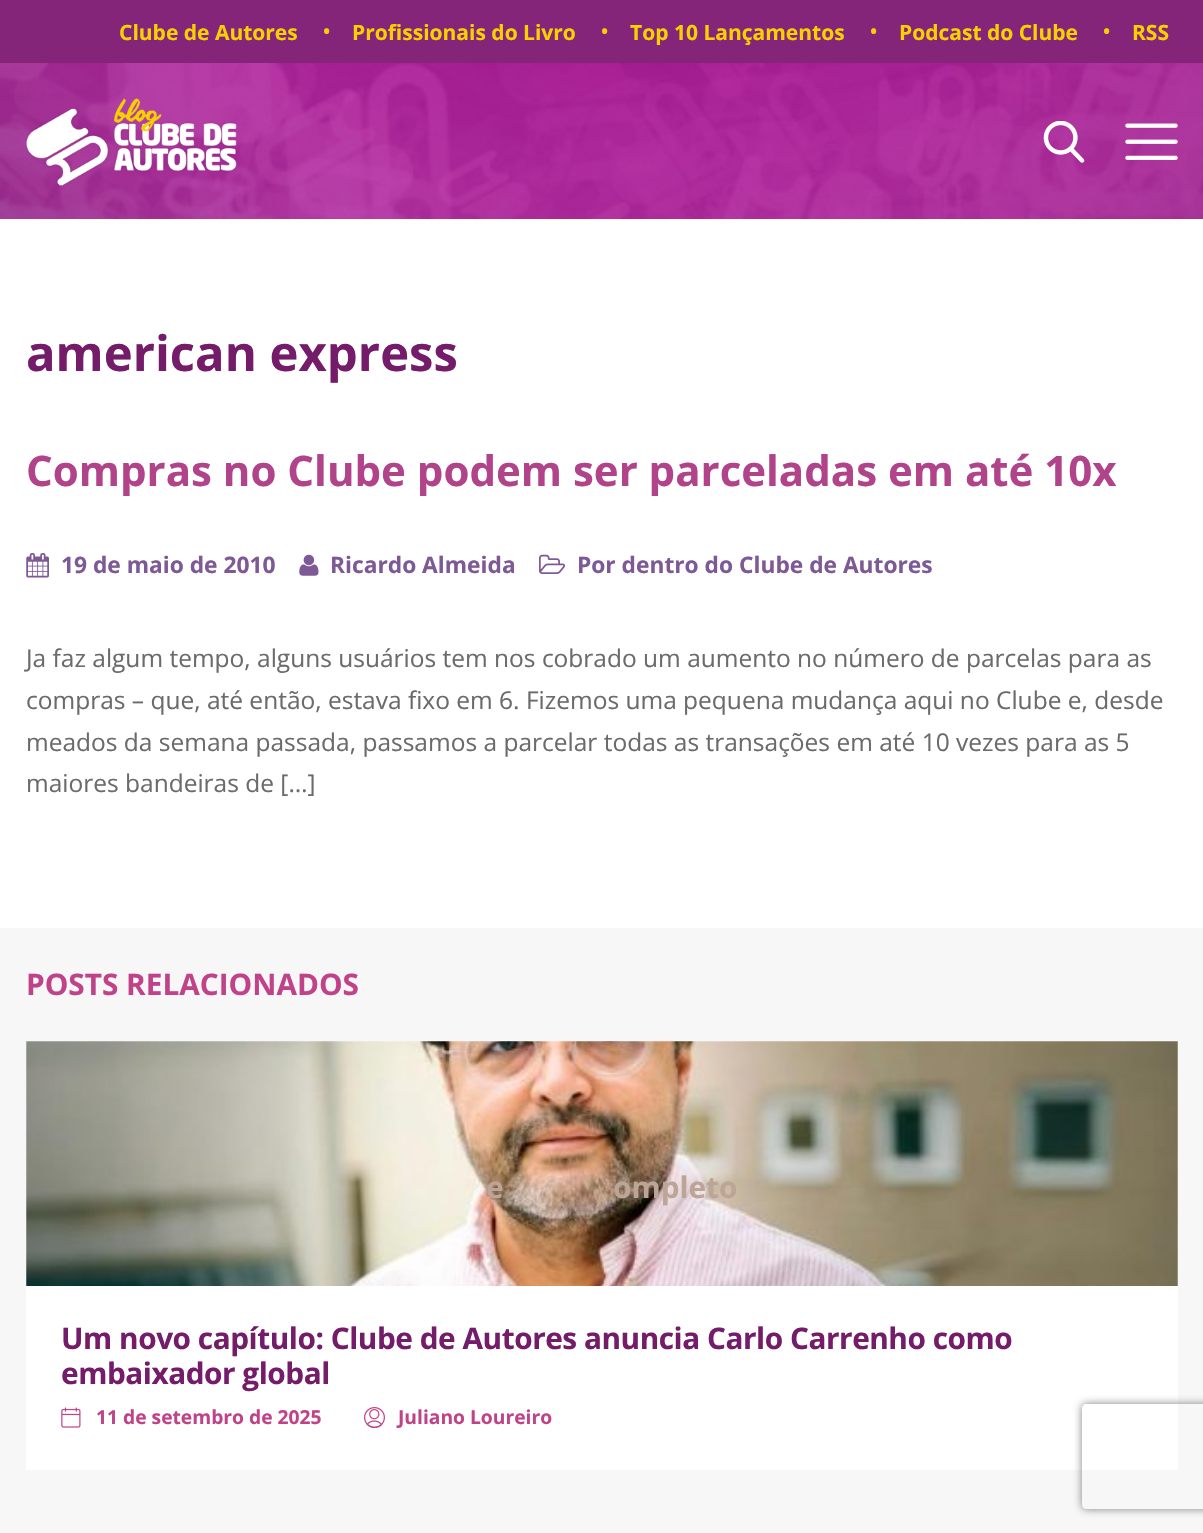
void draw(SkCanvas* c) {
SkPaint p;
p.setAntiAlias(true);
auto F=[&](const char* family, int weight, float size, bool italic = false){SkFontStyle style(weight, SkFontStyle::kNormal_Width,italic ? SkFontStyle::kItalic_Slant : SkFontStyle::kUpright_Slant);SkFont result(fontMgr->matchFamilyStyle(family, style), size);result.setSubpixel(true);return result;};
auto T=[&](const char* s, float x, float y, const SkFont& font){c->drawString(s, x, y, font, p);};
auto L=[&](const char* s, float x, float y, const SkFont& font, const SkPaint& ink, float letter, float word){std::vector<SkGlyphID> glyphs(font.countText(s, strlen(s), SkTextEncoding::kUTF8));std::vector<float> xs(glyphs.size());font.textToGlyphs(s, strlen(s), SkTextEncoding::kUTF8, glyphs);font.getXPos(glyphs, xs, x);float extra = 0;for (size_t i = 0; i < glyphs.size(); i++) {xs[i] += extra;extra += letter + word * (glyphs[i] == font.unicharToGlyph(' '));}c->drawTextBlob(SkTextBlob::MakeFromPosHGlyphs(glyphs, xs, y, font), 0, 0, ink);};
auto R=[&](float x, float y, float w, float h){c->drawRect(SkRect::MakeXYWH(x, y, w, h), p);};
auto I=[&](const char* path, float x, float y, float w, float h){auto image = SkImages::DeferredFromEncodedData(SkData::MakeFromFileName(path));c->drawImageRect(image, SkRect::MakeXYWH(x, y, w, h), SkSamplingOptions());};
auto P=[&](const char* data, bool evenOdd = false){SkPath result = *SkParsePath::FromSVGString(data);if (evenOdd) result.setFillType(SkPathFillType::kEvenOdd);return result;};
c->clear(0xffffffff);
I("1.png",0,63,1203,156);
p.setColor(0xff85257a);
R(0,0,1203,63);
auto f1 = F("Open Sans",700,21);
p.setColor(0xfff6d000);
T("Clube de Autores",119,40,f1);
auto f2 = F("Open Sans",400,24.5);
T("•",322,40,f2);
T("Profissionais do Livro",352,40,f1);
T("•",600,40,f2);
T("Top 10 Lançamentos",630,40,f1);
T("•",869,40,f2);
T("Podcast do Clube",899,40,f1);
T("•",1102,40,f2);
T("RSS",1132,40,f1);
I("2.png",26,98,211,88);
I("3.png",1043,121,42,42);
I("4.png",1125,123,53,37);
auto f3 = F("Open Sans",700,49);
p.setColor(0xff741c6a);
T("american express",26,371,f3);
auto f4 = F("Open Sans",700,42);
p.setColor(0xffb1438a);
T("Compras no Clube podem ser parceladas em até 10x",26,486,f4);
I("5.png",26,553,23,25);
auto f5 = F("Open Sans",700,22.75);
p.setColor(0xff7d5a95);
T("19 de maio de 2010",61,573,f5);
I("6.png",299,554,20,22);
T("Ricardo Almeida",330,573,f5);
I("7.png",539,554,27,20);
T("Por dentro do Clube de Autores",577,573,f5);
p.setColor(0xff6b6b6b);
T("Ja faz algum tempo, alguns usuários tem nos cobrado um aumento no número de parcelas para as",26,667,f2);
T("compras – que, até então, estava fixo em 6. Fizemos uma pequena mudança aqui no Clube e, desde",26,709,f2);
T("meados da semana passada, passamos a parcelar todas as transações em até 10 vezes para as 5",26,751,f2);
T("maiores bandeiras de […]",26,792,f2);
p.setColor(0xfff7f7f7);
R(0,928,1203,605);
auto f6 = F("Open Sans",700,29.75);
p.setColor(0xffc0438a);
T("POSTS RELACIONADOS",26,995,f6);
p.setColor(0xffffffff);
R(26,1041,1152,429);
I("8.png",26,1041,1152,245);
p.setColor(0xffbca596);
T("e",486,1198,f6);
T("ompleto",613,1198,f6);
p.setColor(0xff741c6a);
L("Um novo capítulo: Clube de Autores anuncia Carlo Carrenho como",61,1349,f6,p,-.45,0);
L("embaixador global",61,1384,f6,p,-.45,0);
I("9.png",61,1407,20,21);
auto f7 = F("Open Sans",700,19.25);
p.setColor(0xffc0438a);
T("11 de setembro de 2025",96,1424,f7);
I("10.png",364,1407,21,21);
T("Juliano Loureiro",398,1424,f7);
c->save();
c->clipPath(P("M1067 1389h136v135h-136zm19 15h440c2 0 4 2 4 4v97c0 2-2 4-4 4h-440c-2 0-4-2-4-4v-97c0-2 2-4 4-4z",true),true);
p.setColor(0xff808080);
p.setMaskFilter(SkMaskFilter::MakeBlur(kNormal_SkBlurStyle, 4.5));
c->drawRoundRect(SkRect::MakeXYWH(1082,1404,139,105),4,4,p);
p.setMaskFilter(nullptr);
c->restore();
}
